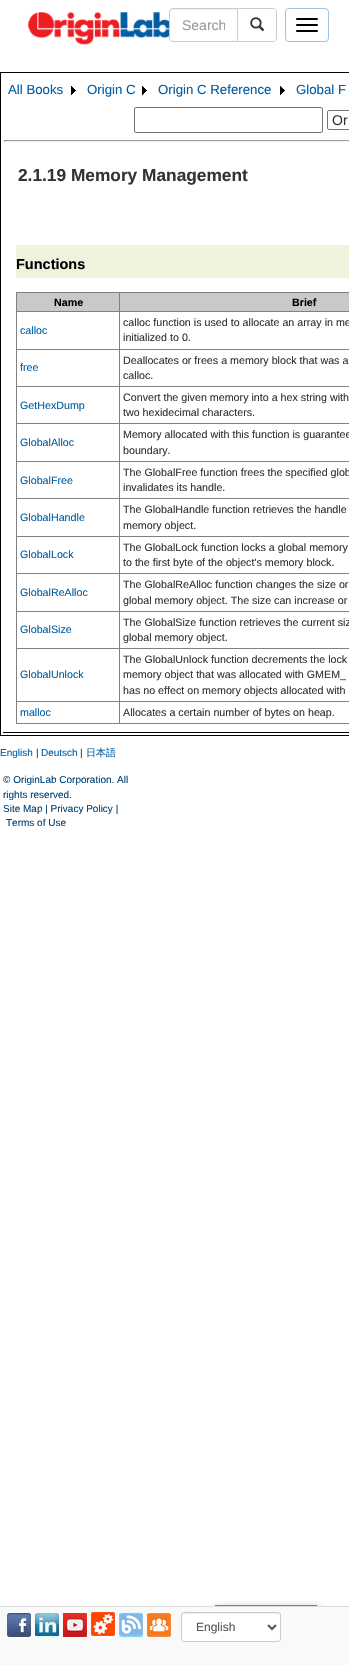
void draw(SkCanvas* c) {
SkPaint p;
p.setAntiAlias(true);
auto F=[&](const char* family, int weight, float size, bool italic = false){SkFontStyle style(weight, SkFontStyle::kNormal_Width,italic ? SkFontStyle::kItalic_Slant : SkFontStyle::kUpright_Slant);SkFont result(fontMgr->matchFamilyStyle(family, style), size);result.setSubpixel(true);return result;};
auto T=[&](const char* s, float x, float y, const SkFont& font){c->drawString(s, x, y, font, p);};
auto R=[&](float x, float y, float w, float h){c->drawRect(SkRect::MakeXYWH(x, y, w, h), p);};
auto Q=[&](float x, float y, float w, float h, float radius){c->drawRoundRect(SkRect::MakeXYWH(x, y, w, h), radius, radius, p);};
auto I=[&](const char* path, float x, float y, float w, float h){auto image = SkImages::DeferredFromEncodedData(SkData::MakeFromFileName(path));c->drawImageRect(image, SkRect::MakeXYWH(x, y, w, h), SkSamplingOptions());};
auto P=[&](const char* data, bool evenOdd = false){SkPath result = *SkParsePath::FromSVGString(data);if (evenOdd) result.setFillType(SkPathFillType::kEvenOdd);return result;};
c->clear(0xffffffff);
I("1.png",28,12,149,33);
p.setStroke(true);
p.setStrokeWidth(1);
p.setColor(0xffcccccc);
c->drawPath(P("M237.5 8.5h35.5c2 0 3.5 1.5 3.5 3.5v26c0 2-1.5 3.5-3.5 3.5h-35.5z"),p);
p.setStroke(false);
p.setColor(0xffffffff);
c->drawPath(P("M173 8h65v34h-65c-2 0-4-2-4-4v-26c0-2 2-4 4-4z"),p);
p.setColor(0xffececec);
c->drawPath(P("M173 10h64v-1h-64c-2 0-3 1-3 3v1c0-2 1-3 3-3z"),p);
p.setStroke(true);
p.setColor(0xffcccccc);
c->drawPath(P("M173 8.5h64.5v33h-64.5c-2 0-3.5-1.5-3.5-3.5v-26c0-2 1.5-3.5 3.5-3.5z"),p);
c->save();
c->clipRect(SkRect::MakeXYWH(182,17,43,16));
auto f1 = F("Liberation Sans",400,14);
p.setStroke(false);
p.setColor(0xff999999);
T("Search",182,30,f1);
c->restore();
I("2.png",250,17,15,15);
p.setStroke(true);
p.setColor(0xff9dc3e6);
c->drawRoundRect(SkRect::MakeXYWH(285.5,8.5,43,33),3.5,3.5,p);
p.setStroke(false);
p.setColor(0xff000000);
Q(296,18,22,2,1);
Q(296,24,22,2,1);
Q(296,30,22,2,1);
p.setStroke(true);
c->drawRect(SkRect::MakeXYWH(.5,72.5,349,663),p);
auto f2 = F("Liberation Sans",400,13.25);
p.setStroke(false);
p.setColor(0xff005da4);
T("All Books",8,94,f2);
I("3.png",71,86,5,9);
T("Origin C",87,94,f2);
I("3.png",142,86,5,9);
T("Origin C Reference",158,94,f2);
I("3.png",280,86,5,9);
T("Global F",296,94,f2);
p.setStroke(true);
p.setColor(0xff767676);
c->drawRoundRect(SkRect::MakeXYWH(134.5,107.5,188,25),1.5,1.5,p);
c->drawRoundRect(SkRect::MakeXYWH(327.5,110.5,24,19),1.5,1.5,p);
p.setStroke(false);
p.setColor(0xff333333);
T("Or",332,125,f1);
p.setColor(0xff9f9f9f);
R(4,140,345,1);
p.setColor(0xffeeeeee);
R(4,141,345,1);
p.setColor(0xff9f9f9f);
R(4,140,1,2);
p.setColor(0xff000000);
R(3,732,346,1);
auto f3 = F("Liberation Sans",700,17.3);
p.setColor(0xff333333);
T("2.1.19 Memory Management",18,181,f3);
p.setColor(0xffeff2dd);
R(16,245,333,33);
auto f4 = F("Liberation Sans",700,14.5);
p.setColor(0xff000000);
T("Functions",16,269,f4);
p.setColor(0xff808080);
R(16,292,333,1);
R(16,723,333,1);
R(16,292,1,432);
p.setColor(0xffc9c9c9);
R(17,293,102,18);
auto f5 = F("Liberation Sans",700,10.7);
p.setColor(0xff000000);
T("Name",54,306,f5);
p.setColor(0xffc9c9c9);
R(120,293,229,18);
p.setColor(0xff808080);
R(119,311,230,1);
R(119,349,230,1);
R(119,386,230,1);
R(119,423,230,1);
R(119,461,230,1);
R(119,498,230,1);
R(119,536,230,1);
R(119,573,230,1);
R(119,611,230,1);
R(119,648,230,1);
R(119,701,230,1);
R(119,701,1,23);
R(16,701,104,1);
R(119,648,1,54);
R(16,648,104,1);
R(119,611,1,38);
R(16,611,104,1);
R(119,573,1,39);
R(16,573,104,1);
R(119,536,1,38);
R(16,536,104,1);
R(119,498,1,39);
R(16,498,104,1);
R(119,461,1,38);
R(16,461,104,1);
R(119,423,1,39);
R(16,423,104,1);
R(119,386,1,38);
R(16,386,104,1);
R(119,349,1,38);
R(16,349,104,1);
R(119,311,1,39);
R(16,311,104,1);
R(119,292,1,20);
p.setColor(0xff000000);
T("Brief",292,306,f5);
auto f6 = F("Liberation Sans",400,10.7);
p.setColor(0xff005da4);
T("calloc",20,334,f6);
p.setColor(0xff333333);
T("calloc function is used to allocate an array in me",123,326,f6);
T("initialized to 0.",123,341,f6);
p.setColor(0xff005da4);
T("free",20,371,f6);
p.setColor(0xff333333);
T("Deallocates or frees a memory block that was a",123,364,f6);
T("calloc.",123,379,f6);
p.setColor(0xff005da4);
T("GetHexDump",20,409,f6);
p.setColor(0xff333333);
T("Convert the given memory into a hex string with",123,401,f6);
T("two hexidecimal characters.",123,416,f6);
p.setColor(0xff005da4);
T("GlobalAlloc",20,446,f6);
p.setColor(0xff333333);
T("Memory allocated with this function is guarantee",123,438,f6);
T("boundary.",123,454,f6);
p.setColor(0xff005da4);
T("GlobalFree",20,484,f6);
p.setColor(0xff333333);
T("The GlobalFree function frees the specified glob",123,476,f6);
T("invalidates its handle.",123,491,f6);
p.setColor(0xff005da4);
T("GlobalHandle",20,521,f6);
p.setColor(0xff333333);
T("The GlobalHandle function retrieves the handle",123,513,f6);
T("memory object.",123,529,f6);
p.setColor(0xff005da4);
T("GlobalLock",20,558,f6);
p.setColor(0xff333333);
T("The GlobalLock function locks a global memory",123,551,f6);
T("to the first byte of the object's memory block.",123,566,f6);
p.setColor(0xff005da4);
T("GlobalReAlloc",20,596,f6);
p.setColor(0xff333333);
T("The GlobalReAlloc function changes the size or",123,588,f6);
T("global memory object. The size can increase or",123,604,f6);
p.setColor(0xff005da4);
T("GlobalSize",20,633,f6);
p.setColor(0xff333333);
T("The GlobalSize function retrieves the current siz",123,626,f6);
T("global memory object.",123,641,f6);
p.setColor(0xff005da4);
T("GlobalUnlock",20,678,f6);
p.setColor(0xff333333);
T("The GlobalUnlock function decrements the lock",123,663,f6);
T("memory object that was allocated with GMEM_",123,678,f6);
T("has no effect on memory objects allocated with",123,694,f6);
p.setColor(0xff005da4);
T("malloc",20,716,f6);
p.setColor(0xff333333);
T("Allocates a certain number of bytes on heap.",123,716,f6);
auto f7 = F("Liberation Sans",400,10);
p.setColor(0xff005da4);
T("English",0,756,f7);
p.setColor(0xff333333);
T("|",36,756,f7);
p.setColor(0xff005da4);
T("Deutsch",41,756,f7);
p.setColor(0xff333333);
T("|",80,756,f7);
auto f8 = F("WenQuanYi Zen Hei",500,10);
p.setColor(0xff005da4);
T("日本語",86,756,f8);
p.setColor(0xff004376);
T("© OriginLab Corporation. All",3,783,f7);
T("rights reserved.",3,798,f7);
T("Site Map | Privacy Policy |",3,812,f7);
T("Terms of Use",6,826,f7);
I("4.png",211,1601,114,5);
p.setColor(0xfff9f9f9);
R(0,1607,349,58);
p.setColor(0xffdddddd);
R(0,1606,349,1);
I("5.png",7,1612,25,26);
I("6.png",35,1612,25,26);
I("7.png",63,1612,25,26);
I("8.png",91,1612,25,26);
I("9.png",119,1612,25,26);
I("10.png",147,1612,25,26);
p.setColor(0xffffffff);
Q(181,1612,100,30,3);
p.setColor(0xffececec);
c->drawPath(P("M184 1614h94c1 0 2 1 2 2c0-1 0-3-2-3h-78c-2 0-18-4-18 3c0-1 1-2 2-2z"),p);
p.setStroke(true);
p.setColor(0xffcccccc);
c->drawRoundRect(SkRect::MakeXYWH(181.5,1612.5,99,29),2.5,2.5,p);
p.setStrokeWidth(2);
p.setColor(0xff555555);
c->drawPath(P("M268 1625l4 4l4-4"),p);
auto f9 = F("Liberation Sans",400,12);
p.setStroke(false);
T("English",196,1631,f9);
}
